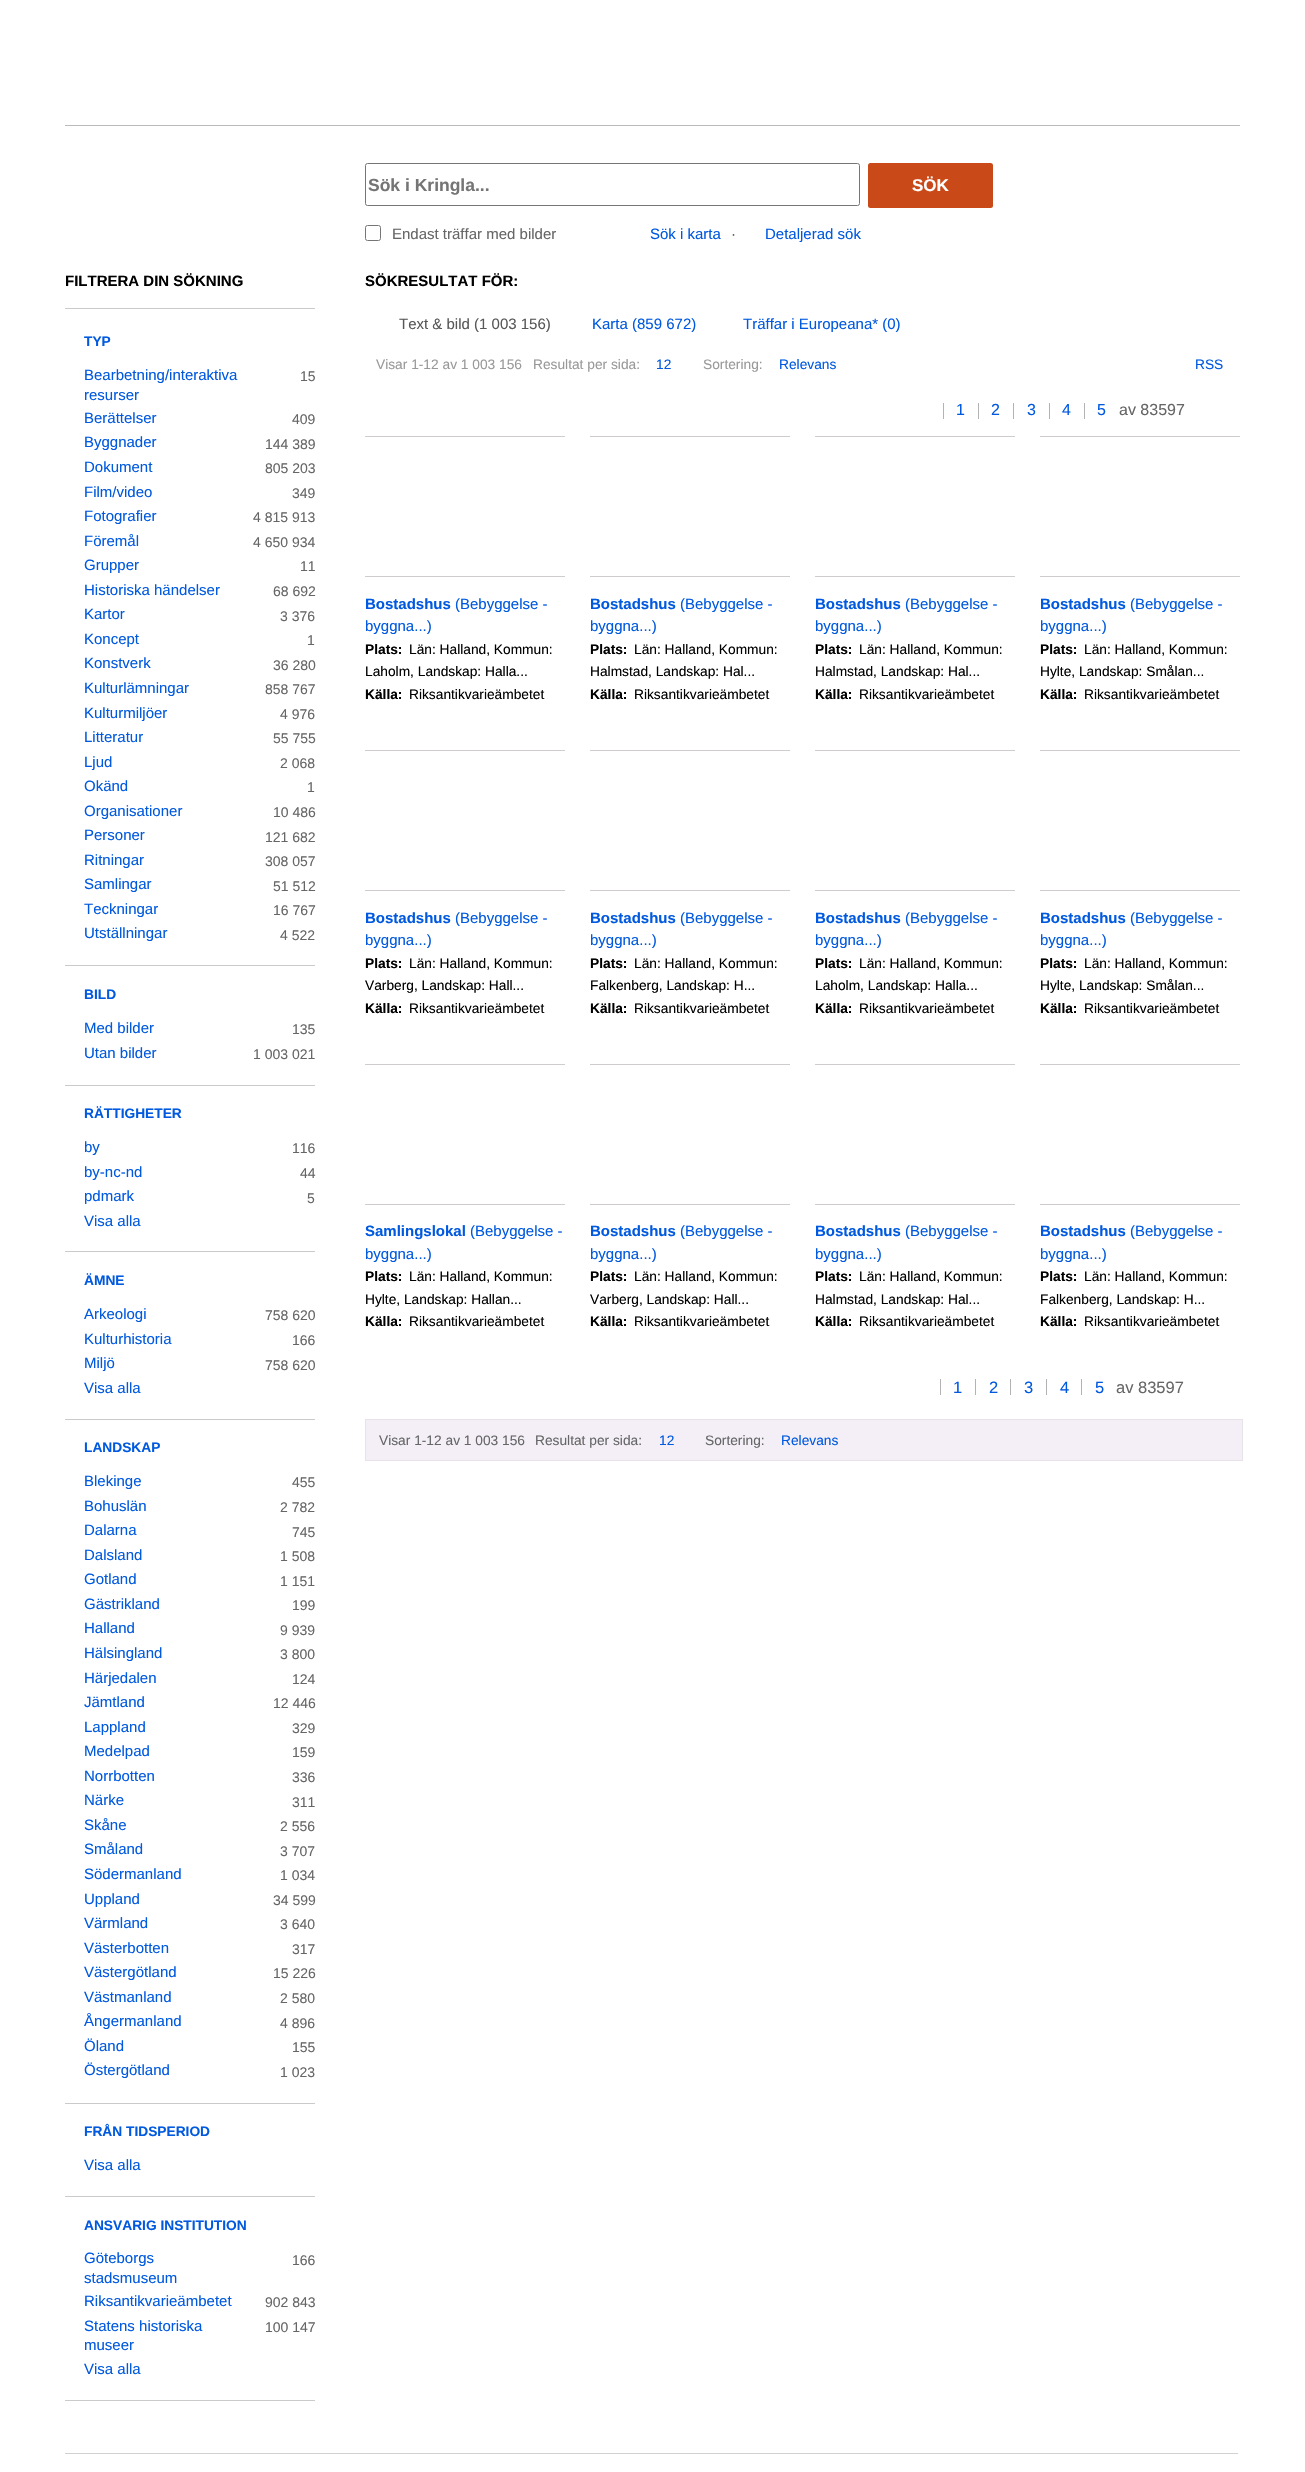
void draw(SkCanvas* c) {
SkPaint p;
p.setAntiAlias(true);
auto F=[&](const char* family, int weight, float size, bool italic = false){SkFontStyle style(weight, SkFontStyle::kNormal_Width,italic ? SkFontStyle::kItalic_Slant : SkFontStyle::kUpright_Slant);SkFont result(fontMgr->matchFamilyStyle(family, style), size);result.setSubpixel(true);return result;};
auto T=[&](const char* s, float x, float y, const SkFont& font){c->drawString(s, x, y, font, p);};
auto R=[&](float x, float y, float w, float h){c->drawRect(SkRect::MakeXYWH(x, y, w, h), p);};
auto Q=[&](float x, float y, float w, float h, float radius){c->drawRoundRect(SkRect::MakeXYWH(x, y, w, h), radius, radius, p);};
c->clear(0xffffffff);
p.setColor(0xffbababa);
R(65,125,1175,1);
p.setStroke(true);
p.setStrokeWidth(1);
p.setColor(0xff767676);
c->drawRoundRect(SkRect::MakeXYWH(365.5,163.5,494,42),2,2,p);
auto f1 = F("Liberation Sans",700,17.5);
p.setStroke(false);
p.setColor(0xff757575);
T("Sök i Kringla...",368,191,f1);
p.setColor(0xffc94a18);
Q(868,163,125,45,2.5);
auto f2 = F("Liberation Sans",700,17);
p.setColor(0xffffffff);
T("SÖK",912,191,f2);
p.setStroke(true);
p.setColor(0xff767676);
c->drawRoundRect(SkRect::MakeXYWH(365.5,225.5,15,15),2,2,p);
auto f3 = F("Liberation Sans",400,15);
p.setStroke(false);
p.setColor(0xff666666);
T("Endast träffar med bilder",392,239,f3);
p.setColor(0xff0059df);
T("Sök i karta",650,239,f3);
p.setColor(0xff585858);
T("·",731,239,f3);
p.setColor(0xff0059df);
T("Detaljerad sök",765,239,f3);
p.setColor(0xffcbcaca);
R(65,308,250,1);
auto f4 = F("Liberation Sans",700,15);
p.setColor(0xff000000);
T("FILTRERA DIN SÖKNING",65,286,f4);
p.setColor(0xffcbcaca);
R(65,965,250,1);
auto f5 = F("Liberation Sans",700,13.75);
p.setColor(0xff0059df);
T("TYP",84,346,f5);
T("Bearbetning/interaktiva",84,380,f3);
T("resurser",84,400,f3);
auto f6 = F("Liberation Sans",400,14);
p.setColor(0xff666666);
T("15",300,381,f6);
p.setColor(0xff0059df);
T("Berättelser",84,423,f3);
p.setColor(0xff666666);
T("409",292,424,f6);
p.setColor(0xff0059df);
T("Byggnader",84,447,f3);
p.setColor(0xff666666);
T("144 389",265,449,f6);
p.setColor(0xff0059df);
T("Dokument",84,472,f3);
p.setColor(0xff666666);
T("805 203",265,473,f6);
p.setColor(0xff0059df);
T("Film/video",84,497,f3);
p.setColor(0xff666666);
T("349",292,498,f6);
p.setColor(0xff0059df);
T("Fotografier",84,521,f3);
p.setColor(0xff666666);
T("4 815 913",253,522,f6);
p.setColor(0xff0059df);
T("Föremål",84,546,f3);
p.setColor(0xff666666);
T("4 650 934",253,547,f6);
p.setColor(0xff0059df);
T("Grupper",84,570,f3);
p.setColor(0xff666666);
T("11",300,571,f6);
p.setColor(0xff0059df);
T("Historiska händelser",84,595,f3);
p.setColor(0xff666666);
T("68 692",273,596,f6);
p.setColor(0xff0059df);
T("Kartor",84,619,f3);
p.setColor(0xff666666);
T("3 376",280,621,f6);
p.setColor(0xff0059df);
T("Koncept",84,644,f3);
p.setColor(0xff666666);
T("1",307,645,f6);
p.setColor(0xff0059df);
T("Konstverk",84,668,f3);
p.setColor(0xff666666);
T("36 280",273,670,f6);
p.setColor(0xff0059df);
T("Kulturlämningar",84,693,f3);
p.setColor(0xff666666);
T("858 767",265,694,f6);
p.setColor(0xff0059df);
T("Kulturmiljöer",84,718,f3);
p.setColor(0xff666666);
T("4 976",280,719,f6);
p.setColor(0xff0059df);
T("Litteratur",84,742,f3);
p.setColor(0xff666666);
T("55 755",273,743,f6);
p.setColor(0xff0059df);
T("Ljud",84,767,f3);
p.setColor(0xff666666);
T("2 068",280,768,f6);
p.setColor(0xff0059df);
T("Okänd",84,791,f3);
p.setColor(0xff666666);
T("1",307,792,f6);
p.setColor(0xff0059df);
T("Organisationer",84,816,f3);
p.setColor(0xff666666);
T("10 486",273,817,f6);
p.setColor(0xff0059df);
T("Personer",84,840,f3);
p.setColor(0xff666666);
T("121 682",265,842,f6);
p.setColor(0xff0059df);
T("Ritningar",84,865,f3);
p.setColor(0xff666666);
T("308 057",265,866,f6);
p.setColor(0xff0059df);
T("Samlingar",84,889,f3);
p.setColor(0xff666666);
T("51 512",273,891,f6);
p.setColor(0xff0059df);
T("Teckningar",84,914,f3);
p.setColor(0xff666666);
T("16 767",273,915,f6);
p.setColor(0xff0059df);
T("Utställningar",84,938,f3);
p.setColor(0xff666666);
T("4 522",280,940,f6);
p.setColor(0xffcbcaca);
R(65,1085,250,1);
p.setColor(0xff0059df);
T("BILD",84,999,f5);
T("Med bilder",84,1033,f3);
p.setColor(0xff666666);
T("135",292,1034,f6);
p.setColor(0xff0059df);
T("Utan bilder",84,1058,f3);
p.setColor(0xff666666);
T("1 003 021",253,1059,f6);
p.setColor(0xffcbcaca);
R(65,1251,250,1);
p.setColor(0xff0059df);
T("RÄTTIGHETER",84,1118,f5);
T("by",84,1152,f3);
p.setColor(0xff666666);
T("116",292,1153,f6);
p.setColor(0xff0059df);
T("by-nc-nd",84,1177,f3);
p.setColor(0xff666666);
T("44",300,1178,f6);
p.setColor(0xff0059df);
T("pdmark",84,1201,f3);
p.setColor(0xff666666);
T("5",307,1203,f6);
p.setColor(0xff0059df);
T("Visa alla",84,1226,f3);
p.setColor(0xffcbcaca);
R(65,1419,250,1);
p.setColor(0xff0059df);
T("ÄMNE",84,1285,f5);
T("Arkeologi",84,1319,f3);
p.setColor(0xff666666);
T("758 620",265,1320,f6);
p.setColor(0xff0059df);
T("Kulturhistoria",84,1344,f3);
p.setColor(0xff666666);
T("166",292,1345,f6);
p.setColor(0xff0059df);
T("Miljö",84,1368,f3);
p.setColor(0xff666666);
T("758 620",265,1370,f6);
p.setColor(0xff0059df);
T("Visa alla",84,1393,f3);
p.setColor(0xffcbcaca);
R(65,2103,250,1);
p.setColor(0xff0059df);
T("LANDSKAP",84,1452,f5);
T("Blekinge",84,1486,f3);
p.setColor(0xff666666);
T("455",292,1487,f6);
p.setColor(0xff0059df);
T("Bohuslän",84,1511,f3);
p.setColor(0xff666666);
T("2 782",280,1512,f6);
p.setColor(0xff0059df);
T("Dalarna",84,1535,f3);
p.setColor(0xff666666);
T("745",292,1537,f6);
p.setColor(0xff0059df);
T("Dalsland",84,1560,f3);
p.setColor(0xff666666);
T("1 508",280,1561,f6);
p.setColor(0xff0059df);
T("Gotland",84,1584,f3);
p.setColor(0xff666666);
T("1 151",280,1586,f6);
p.setColor(0xff0059df);
T("Gästrikland",84,1609,f3);
p.setColor(0xff666666);
T("199",292,1610,f6);
p.setColor(0xff0059df);
T("Halland",84,1633,f3);
p.setColor(0xff666666);
T("9 939",280,1635,f6);
p.setColor(0xff0059df);
T("Hälsingland",84,1658,f3);
p.setColor(0xff666666);
T("3 800",280,1659,f6);
p.setColor(0xff0059df);
T("Härjedalen",84,1683,f3);
p.setColor(0xff666666);
T("124",292,1684,f6);
p.setColor(0xff0059df);
T("Jämtland",84,1707,f3);
p.setColor(0xff666666);
T("12 446",273,1708,f6);
p.setColor(0xff0059df);
T("Lappland",84,1732,f3);
p.setColor(0xff666666);
T("329",292,1733,f6);
p.setColor(0xff0059df);
T("Medelpad",84,1756,f3);
p.setColor(0xff666666);
T("159",292,1757,f6);
p.setColor(0xff0059df);
T("Norrbotten",84,1781,f3);
p.setColor(0xff666666);
T("336",292,1782,f6);
p.setColor(0xff0059df);
T("Närke",84,1805,f3);
p.setColor(0xff666666);
T("311",292,1807,f6);
p.setColor(0xff0059df);
T("Skåne",84,1830,f3);
p.setColor(0xff666666);
T("2 556",280,1831,f6);
p.setColor(0xff0059df);
T("Småland",84,1854,f3);
p.setColor(0xff666666);
T("3 707",280,1856,f6);
p.setColor(0xff0059df);
T("Södermanland",84,1879,f3);
p.setColor(0xff666666);
T("1 034",280,1880,f6);
p.setColor(0xff0059df);
T("Uppland",84,1904,f3);
p.setColor(0xff666666);
T("34 599",273,1905,f6);
p.setColor(0xff0059df);
T("Värmland",84,1928,f3);
p.setColor(0xff666666);
T("3 640",280,1929,f6);
p.setColor(0xff0059df);
T("Västerbotten",84,1953,f3);
p.setColor(0xff666666);
T("317",292,1954,f6);
p.setColor(0xff0059df);
T("Västergötland",84,1977,f3);
p.setColor(0xff666666);
T("15 226",273,1978,f6);
p.setColor(0xff0059df);
T("Västmanland",84,2002,f3);
p.setColor(0xff666666);
T("2 580",280,2003,f6);
p.setColor(0xff0059df);
T("Ångermanland",84,2026,f3);
p.setColor(0xff666666);
T("4 896",280,2028,f6);
p.setColor(0xff0059df);
T("Öland",84,2051,f3);
p.setColor(0xff666666);
T("155",292,2052,f6);
p.setColor(0xff0059df);
T("Östergötland",84,2075,f3);
p.setColor(0xff666666);
T("1 023",280,2077,f6);
p.setColor(0xffcbcaca);
R(65,2196,250,1);
p.setColor(0xff0059df);
T("FRÅN TIDSPERIOD",84,2136,f5);
T("Visa alla",84,2170,f3);
p.setColor(0xffcbcaca);
R(65,2400,250,1);
p.setColor(0xff0059df);
T("ANSVARIG INSTITUTION",84,2230,f5);
T("Göteborgs",84,2263,f3);
T("stadsmuseum",84,2283,f3);
p.setColor(0xff666666);
T("166",292,2265,f6);
p.setColor(0xff0059df);
T("Riksantikvarieämbetet",84,2306,f3);
p.setColor(0xff666666);
T("902 843",265,2307,f6);
p.setColor(0xff0059df);
T("Statens historiska",84,2331,f3);
T("museer",84,2350,f3);
p.setColor(0xff666666);
T("100 147",265,2332,f6);
p.setColor(0xff0059df);
T("Visa alla",84,2374,f3);
p.setColor(0xff000000);
T("SÖKRESULTAT FÖR:",365,286,f4);
p.setColor(0xff585858);
T("Text & bild (1 003 156)",399,329,f3);
p.setColor(0xff0059df);
T("Karta (859 672)",592,329,f3);
T("Träffar i Europeana* (0)",743,329,f3);
auto f7 = F("Liberation Sans",400,13.75);
p.setColor(0xff999999);
T("Visar 1-12 av 1 003 156",376,369,f7);
T("Resultat per sida:",533,369,f7);
p.setColor(0xff0059df);
T("12",656,369,f7);
p.setColor(0xff999999);
T("Sortering:",703,369,f7);
p.setColor(0xff0059df);
T("Relevans",779,369,f7);
T("RSS",1195,369,f7);
p.setColor(0xffb3b3b3);
R(943,403,1,16);
auto f8 = F("Liberation Sans",400,16);
p.setColor(0xff0059df);
T("1",956,415,f8);
p.setColor(0xffb3b3b3);
R(978,403,1,16);
p.setColor(0xff0059df);
T("2",991,415,f8);
p.setColor(0xffb3b3b3);
R(1013,403,1,16);
p.setColor(0xff0059df);
T("3",1027,415,f8);
p.setColor(0xffb3b3b3);
R(1049,403,1,16);
p.setColor(0xff0059df);
T("4",1062,415,f8);
p.setColor(0xffb3b3b3);
R(1084,403,1,16);
p.setColor(0xff0059df);
T("5",1097,415,f8);
p.setColor(0xff666666);
T("av 83597",1119,415,f8);
p.setColor(0xffd0cccc);
R(365,436,200,1);
R(365,576,200,1);
p.setColor(0xff0059df);
T("Bostadshus",365,609,f4);
T("(Bebyggelse -",455,609,f3);
T("byggna...)",365,631,f3);
p.setColor(0xff000000);
T("Plats:",365,654,f5);
T("Län: Halland, Kommun:",409,654,f7);
T("Laholm, Landskap: Halla...",365,676,f7);
T("Källa:",365,699,f5);
T("Riksantikvarieämbetet",409,699,f7);
p.setColor(0xffd0cccc);
R(590,436,200,1);
R(590,576,200,1);
p.setColor(0xff0059df);
T("Bostadshus",590,609,f4);
T("(Bebyggelse -",680,609,f3);
T("byggna...)",590,631,f3);
p.setColor(0xff000000);
T("Plats:",590,654,f5);
T("Län: Halland, Kommun:",634,654,f7);
T("Halmstad, Landskap: Hal...",590,676,f7);
T("Källa:",590,699,f5);
T("Riksantikvarieämbetet",634,699,f7);
p.setColor(0xffd0cccc);
R(815,436,200,1);
R(815,576,200,1);
p.setColor(0xff0059df);
T("Bostadshus",815,609,f4);
T("(Bebyggelse -",905,609,f3);
T("byggna...)",815,631,f3);
p.setColor(0xff000000);
T("Plats:",815,654,f5);
T("Län: Halland, Kommun:",859,654,f7);
T("Halmstad, Landskap: Hal...",815,676,f7);
T("Källa:",815,699,f5);
T("Riksantikvarieämbetet",859,699,f7);
p.setColor(0xffd0cccc);
R(1040,436,200,1);
R(1040,576,200,1);
p.setColor(0xff0059df);
T("Bostadshus",1040,609,f4);
T("(Bebyggelse -",1130,609,f3);
T("byggna...)",1040,631,f3);
p.setColor(0xff000000);
T("Plats:",1040,654,f5);
T("Län: Halland, Kommun:",1084,654,f7);
T("Hylte, Landskap: Smålan...",1040,676,f7);
T("Källa:",1040,699,f5);
T("Riksantikvarieämbetet",1084,699,f7);
p.setColor(0xffd0cccc);
R(365,750,200,1);
R(365,890,200,1);
p.setColor(0xff0059df);
T("Bostadshus",365,923,f4);
T("(Bebyggelse -",455,923,f3);
T("byggna...)",365,945,f3);
p.setColor(0xff000000);
T("Plats:",365,968,f5);
T("Län: Halland, Kommun:",409,968,f7);
T("Varberg, Landskap: Hall...",365,990,f7);
T("Källa:",365,1013,f5);
T("Riksantikvarieämbetet",409,1013,f7);
p.setColor(0xffd0cccc);
R(590,750,200,1);
R(590,890,200,1);
p.setColor(0xff0059df);
T("Bostadshus",590,923,f4);
T("(Bebyggelse -",680,923,f3);
T("byggna...)",590,945,f3);
p.setColor(0xff000000);
T("Plats:",590,968,f5);
T("Län: Halland, Kommun:",634,968,f7);
T("Falkenberg, Landskap: H...",590,990,f7);
T("Källa:",590,1013,f5);
T("Riksantikvarieämbetet",634,1013,f7);
p.setColor(0xffd0cccc);
R(815,750,200,1);
R(815,890,200,1);
p.setColor(0xff0059df);
T("Bostadshus",815,923,f4);
T("(Bebyggelse -",905,923,f3);
T("byggna...)",815,945,f3);
p.setColor(0xff000000);
T("Plats:",815,968,f5);
T("Län: Halland, Kommun:",859,968,f7);
T("Laholm, Landskap: Halla...",815,990,f7);
T("Källa:",815,1013,f5);
T("Riksantikvarieämbetet",859,1013,f7);
p.setColor(0xffd0cccc);
R(1040,750,200,1);
R(1040,890,200,1);
p.setColor(0xff0059df);
T("Bostadshus",1040,923,f4);
T("(Bebyggelse -",1130,923,f3);
T("byggna...)",1040,945,f3);
p.setColor(0xff000000);
T("Plats:",1040,968,f5);
T("Län: Halland, Kommun:",1084,968,f7);
T("Hylte, Landskap: Smålan...",1040,990,f7);
T("Källa:",1040,1013,f5);
T("Riksantikvarieämbetet",1084,1013,f7);
p.setColor(0xffd0cccc);
R(365,1064,200,1);
R(365,1204,200,1);
p.setColor(0xff0059df);
T("Samlingslokal",365,1236,f4);
T("(Bebyggelse -",470,1236,f3);
T("byggna...)",365,1259,f3);
p.setColor(0xff000000);
T("Plats:",365,1281,f5);
T("Län: Halland, Kommun:",409,1281,f7);
T("Hylte, Landskap: Hallan...",365,1304,f7);
T("Källa:",365,1326,f5);
T("Riksantikvarieämbetet",409,1326,f7);
p.setColor(0xffd0cccc);
R(590,1064,200,1);
R(590,1204,200,1);
p.setColor(0xff0059df);
T("Bostadshus",590,1236,f4);
T("(Bebyggelse -",680,1236,f3);
T("byggna...)",590,1259,f3);
p.setColor(0xff000000);
T("Plats:",590,1281,f5);
T("Län: Halland, Kommun:",634,1281,f7);
T("Varberg, Landskap: Hall...",590,1304,f7);
T("Källa:",590,1326,f5);
T("Riksantikvarieämbetet",634,1326,f7);
p.setColor(0xffd0cccc);
R(815,1064,200,1);
R(815,1204,200,1);
p.setColor(0xff0059df);
T("Bostadshus",815,1236,f4);
T("(Bebyggelse -",905,1236,f3);
T("byggna...)",815,1259,f3);
p.setColor(0xff000000);
T("Plats:",815,1281,f5);
T("Län: Halland, Kommun:",859,1281,f7);
T("Halmstad, Landskap: Hal...",815,1304,f7);
T("Källa:",815,1326,f5);
T("Riksantikvarieämbetet",859,1326,f7);
p.setColor(0xffd0cccc);
R(1040,1064,200,1);
R(1040,1204,200,1);
p.setColor(0xff0059df);
T("Bostadshus",1040,1236,f4);
T("(Bebyggelse -",1130,1236,f3);
T("byggna...)",1040,1259,f3);
p.setColor(0xff000000);
T("Plats:",1040,1281,f5);
T("Län: Halland, Kommun:",1084,1281,f7);
T("Falkenberg, Landskap: H...",1040,1304,f7);
T("Källa:",1040,1326,f5);
T("Riksantikvarieämbetet",1084,1326,f7);
p.setColor(0xffb3b3b3);
R(940,1379,1,16);
auto f9 = F("Liberation Sans",400,16.5);
p.setColor(0xff0059df);
T("1",953,1393,f9);
p.setColor(0xffb3b3b3);
R(975,1379,1,16);
p.setColor(0xff0059df);
T("2",989,1393,f9);
p.setColor(0xffb3b3b3);
R(1010,1379,1,16);
p.setColor(0xff0059df);
T("3",1024,1393,f9);
p.setColor(0xffb3b3b3);
R(1046,1379,1,16);
p.setColor(0xff0059df);
T("4",1060,1393,f9);
p.setColor(0xffb3b3b3);
R(1081,1379,1,16);
p.setColor(0xff0059df);
T("5",1095,1393,f9);
p.setColor(0xff666666);
T("av 83597",1116,1393,f9);
p.setColor(0xfff4eff7);
c->drawRect(SkRect::MakeXYWH(365.5,1419.5,877,41),p);
p.setStroke(true);
p.setColor(0xffe7e3e8);
c->drawRect(SkRect::MakeXYWH(365.5,1419.5,877,41),p);
p.setStroke(false);
p.setColor(0xff666666);
T("Visar 1-12 av 1 003 156",379,1445,f7);
T("Resultat per sida:",535,1445,f7);
p.setColor(0xff0059df);
T("12",659,1445,f7);
p.setColor(0xff666666);
T("Sortering:",705,1445,f7);
p.setColor(0xff0059df);
T("Relevans",781,1445,f7);
p.setColor(0xffd2d1d1);
R(65,2453,1173,1);
}
